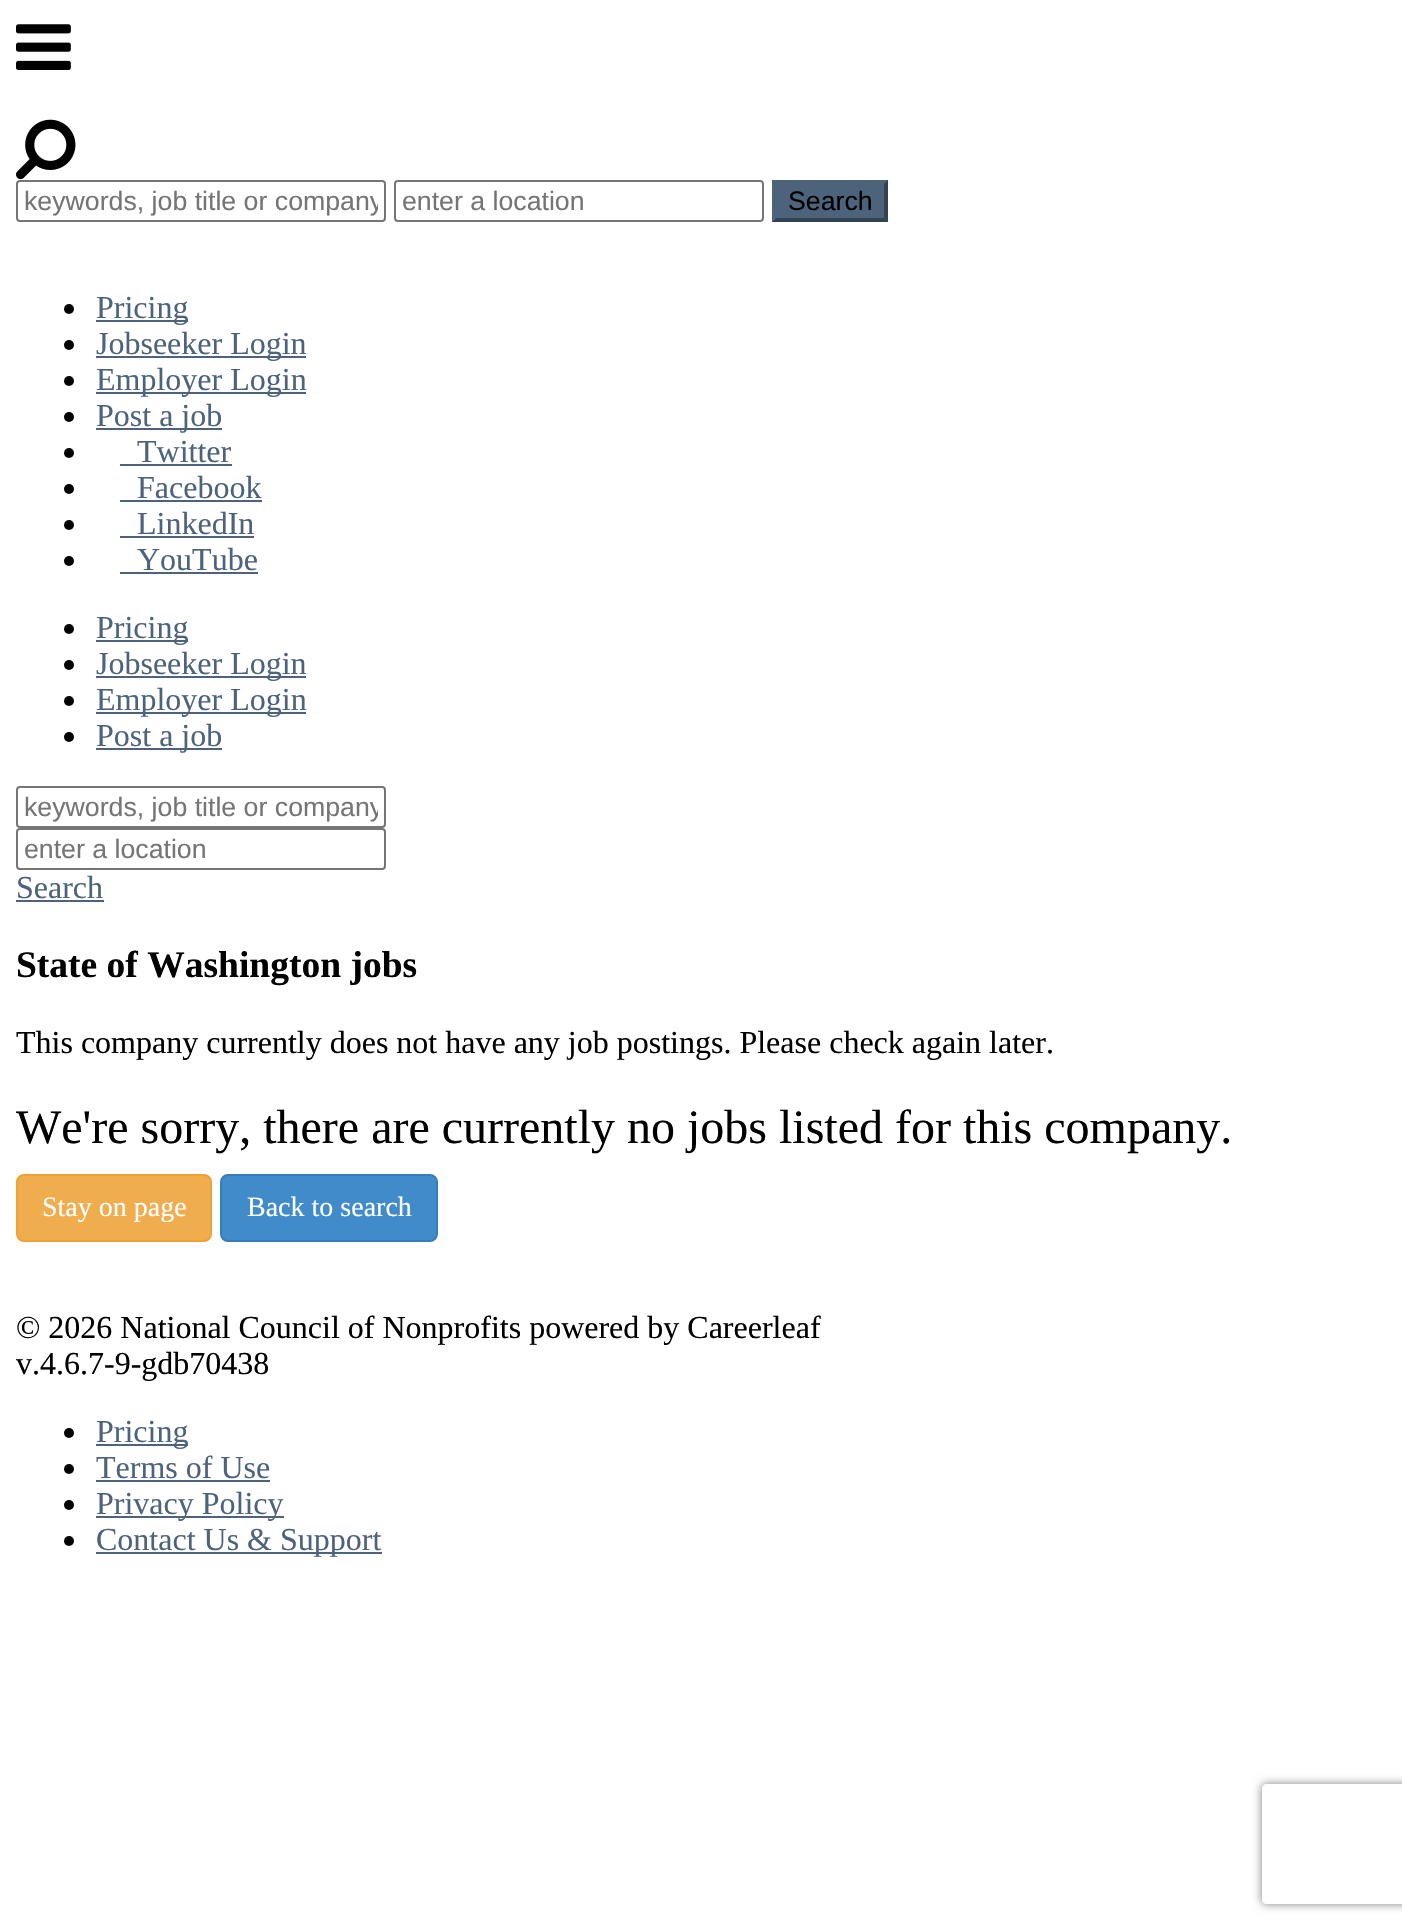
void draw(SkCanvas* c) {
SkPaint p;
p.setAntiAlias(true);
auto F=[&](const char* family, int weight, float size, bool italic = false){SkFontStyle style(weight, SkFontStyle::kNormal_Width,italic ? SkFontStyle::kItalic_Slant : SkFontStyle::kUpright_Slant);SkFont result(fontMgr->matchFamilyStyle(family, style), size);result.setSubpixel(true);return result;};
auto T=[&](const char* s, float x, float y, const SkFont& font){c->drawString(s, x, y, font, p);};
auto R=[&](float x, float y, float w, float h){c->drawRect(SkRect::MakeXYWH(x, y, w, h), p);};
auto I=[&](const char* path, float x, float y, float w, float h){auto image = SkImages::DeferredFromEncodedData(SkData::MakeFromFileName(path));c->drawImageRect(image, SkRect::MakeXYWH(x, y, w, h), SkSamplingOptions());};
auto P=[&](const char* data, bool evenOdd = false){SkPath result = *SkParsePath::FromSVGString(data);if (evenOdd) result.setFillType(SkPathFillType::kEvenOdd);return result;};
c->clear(0xffffffff);
I("1.png",16,24,55,46);
I("2.png",16,119,60,61);
p.setStroke(true);
p.setStrokeWidth(2);
p.setColor(0xff767676);
c->drawRoundRect(SkRect::MakeXYWH(17,181,368,40),3,3,p);
c->save();
c->clipRect(SkRect::MakeXYWH(24,186,354,30));
auto f1 = F("Liberation Sans",400,26.7);
p.setStroke(false);
p.setColor(0xff757575);
T("keywords, job title or company",24,210,f1);
c->restore();
p.setStroke(true);
p.setColor(0xff767676);
c->drawRoundRect(SkRect::MakeXYWH(395,181,368,40),3,3,p);
p.setStroke(false);
p.setColor(0xff757575);
T("enter a location",402,210,f1);
p.setColor(0xff4d637b);
R(772,180,116,42);
p.setColor(0xff334252);
c->drawPath(P("M888 180v42l-4-4v-34z"),p);
c->drawPath(P("M888 222h-116l4-4h108z"),p);
p.setColor(0xff4d637b);
c->drawPath(P("M772 222v-42l4 4v34z"),p);
p.setColor(0xff000000);
T("Search",788,210,f1);
c->drawCircle(69,309,5,p);
p.setColor(0xff4d637b);
R(96,320,92,2);
auto f2 = F("Liberation Serif",400,32);
T("Pricing",96,318,f2);
p.setColor(0xff000000);
c->drawCircle(69,345,5,p);
p.setColor(0xff4d637b);
R(96,356,210,2);
T("Jobseeker Login",96,354,f2);
p.setColor(0xff000000);
c->drawCircle(69,381,5,p);
p.setColor(0xff4d637b);
R(96,392,210,2);
T("Employer Login",96,390,f2);
p.setColor(0xff000000);
c->drawCircle(69,417,5,p);
p.setColor(0xff4d637b);
R(96,428,126,2);
T("Post a job",96,426,f2);
p.setColor(0xff000000);
c->drawCircle(69,453,5,p);
p.setColor(0xff4d637b);
T("Twitter",137,462,f2);
R(120,464,112,2);
p.setColor(0xff000000);
c->drawCircle(69,489,5,p);
p.setColor(0xff4d637b);
T("Facebook",137,498,f2);
R(120,500,142,2);
p.setColor(0xff000000);
c->drawCircle(69,525,5,p);
p.setColor(0xff4d637b);
T("LinkedIn",137,534,f2);
R(120,536,134,2);
p.setColor(0xff000000);
c->drawCircle(69,561,5,p);
p.setColor(0xff4d637b);
T("YouTube",137,570,f2);
R(120,572,138,2);
p.setColor(0xff000000);
c->drawCircle(69,629,5,p);
p.setColor(0xff4d637b);
R(96,640,92,2);
T("Pricing",96,638,f2);
p.setColor(0xff000000);
c->drawCircle(69,665,5,p);
p.setColor(0xff4d637b);
R(96,676,210,2);
T("Jobseeker Login",96,674,f2);
p.setColor(0xff000000);
c->drawCircle(69,701,5,p);
p.setColor(0xff4d637b);
R(96,712,210,2);
T("Employer Login",96,710,f2);
p.setColor(0xff000000);
c->drawCircle(69,737,5,p);
p.setColor(0xff4d637b);
R(96,748,126,2);
T("Post a job",96,746,f2);
p.setStroke(true);
p.setColor(0xff767676);
c->drawRoundRect(SkRect::MakeXYWH(17,787,368,40),3,3,p);
c->save();
c->clipRect(SkRect::MakeXYWH(24,792,354,30));
p.setStroke(false);
p.setColor(0xff757575);
T("keywords, job title or company",24,816,f1);
c->restore();
p.setStroke(true);
p.setColor(0xff767676);
c->drawRoundRect(SkRect::MakeXYWH(17,829,368,40),3,3,p);
p.setStroke(false);
p.setColor(0xff757575);
T("enter a location",24,858,f1);
p.setColor(0xff4d637b);
T("Search",16,898,f2);
R(16,900,88,2);
auto f3 = F("Liberation Serif",700,37.5);
p.setColor(0xff000000);
T("State of Washington jobs",16,977,f3);
T("This company currently does not have any job postings. Please check again later.",16,1053,f2);
auto f4 = F("Liberation Serif",400,48);
T("We're sorry, there are currently no jobs listed for this company.",16,1143,f4);
p.setColor(0xfff0ad4e);
c->drawRoundRect(SkRect::MakeXYWH(17,1175,194,66),7,7,p);
p.setStroke(true);
p.setColor(0xffeea236);
c->drawRoundRect(SkRect::MakeXYWH(17,1175,194,66),7,7,p);
auto f5 = F("Liberation Serif",400,28);
p.setStroke(false);
p.setColor(0xffffffff);
T("Stay on page",42,1216,f5);
p.setColor(0xff428bca);
c->drawRoundRect(SkRect::MakeXYWH(221,1175,216,66),7,7,p);
p.setStroke(true);
p.setColor(0xff357ebd);
c->drawRoundRect(SkRect::MakeXYWH(221,1175,216,66),7,7,p);
p.setStroke(false);
p.setColor(0xffffffff);
T("Back to search",247,1216,f5);
p.setColor(0xff000000);
T("© 2026 National Council of Nonprofits powered by Careerleaf",16,1338,f2);
T("v.4.6.7-9-gdb70438",16,1374,f2);
c->drawCircle(69,1433,5,p);
p.setColor(0xff4d637b);
R(96,1444,92,2);
T("Pricing",96,1442,f2);
p.setColor(0xff000000);
c->drawCircle(69,1469,5,p);
p.setColor(0xff4d637b);
T("Terms of Use",96,1478,f2);
R(96,1480,174,2);
p.setColor(0xff000000);
c->drawCircle(69,1505,5,p);
p.setColor(0xff4d637b);
R(96,1516,188,2);
T("Privacy Policy",96,1514,f2);
p.setColor(0xff000000);
c->drawCircle(69,1541,5,p);
p.setColor(0xff4d637b);
R(96,1552,286,2);
T("Contact Us & Support",96,1550,f2);
c->save();
c->clipPath(P("M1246 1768h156v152h-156zm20 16h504c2 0 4 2 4 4v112c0 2-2 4-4 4h-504c-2 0-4-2-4-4v-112c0-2 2-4 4-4z",true),true);
p.setColor(0xff808080);
p.setMaskFilter(SkMaskFilter::MakeBlur(kNormal_SkBlurStyle, 5));
c->drawRoundRect(SkRect::MakeXYWH(1262,1784,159,120),4,4,p);
p.setMaskFilter(nullptr);
c->restore();
}
